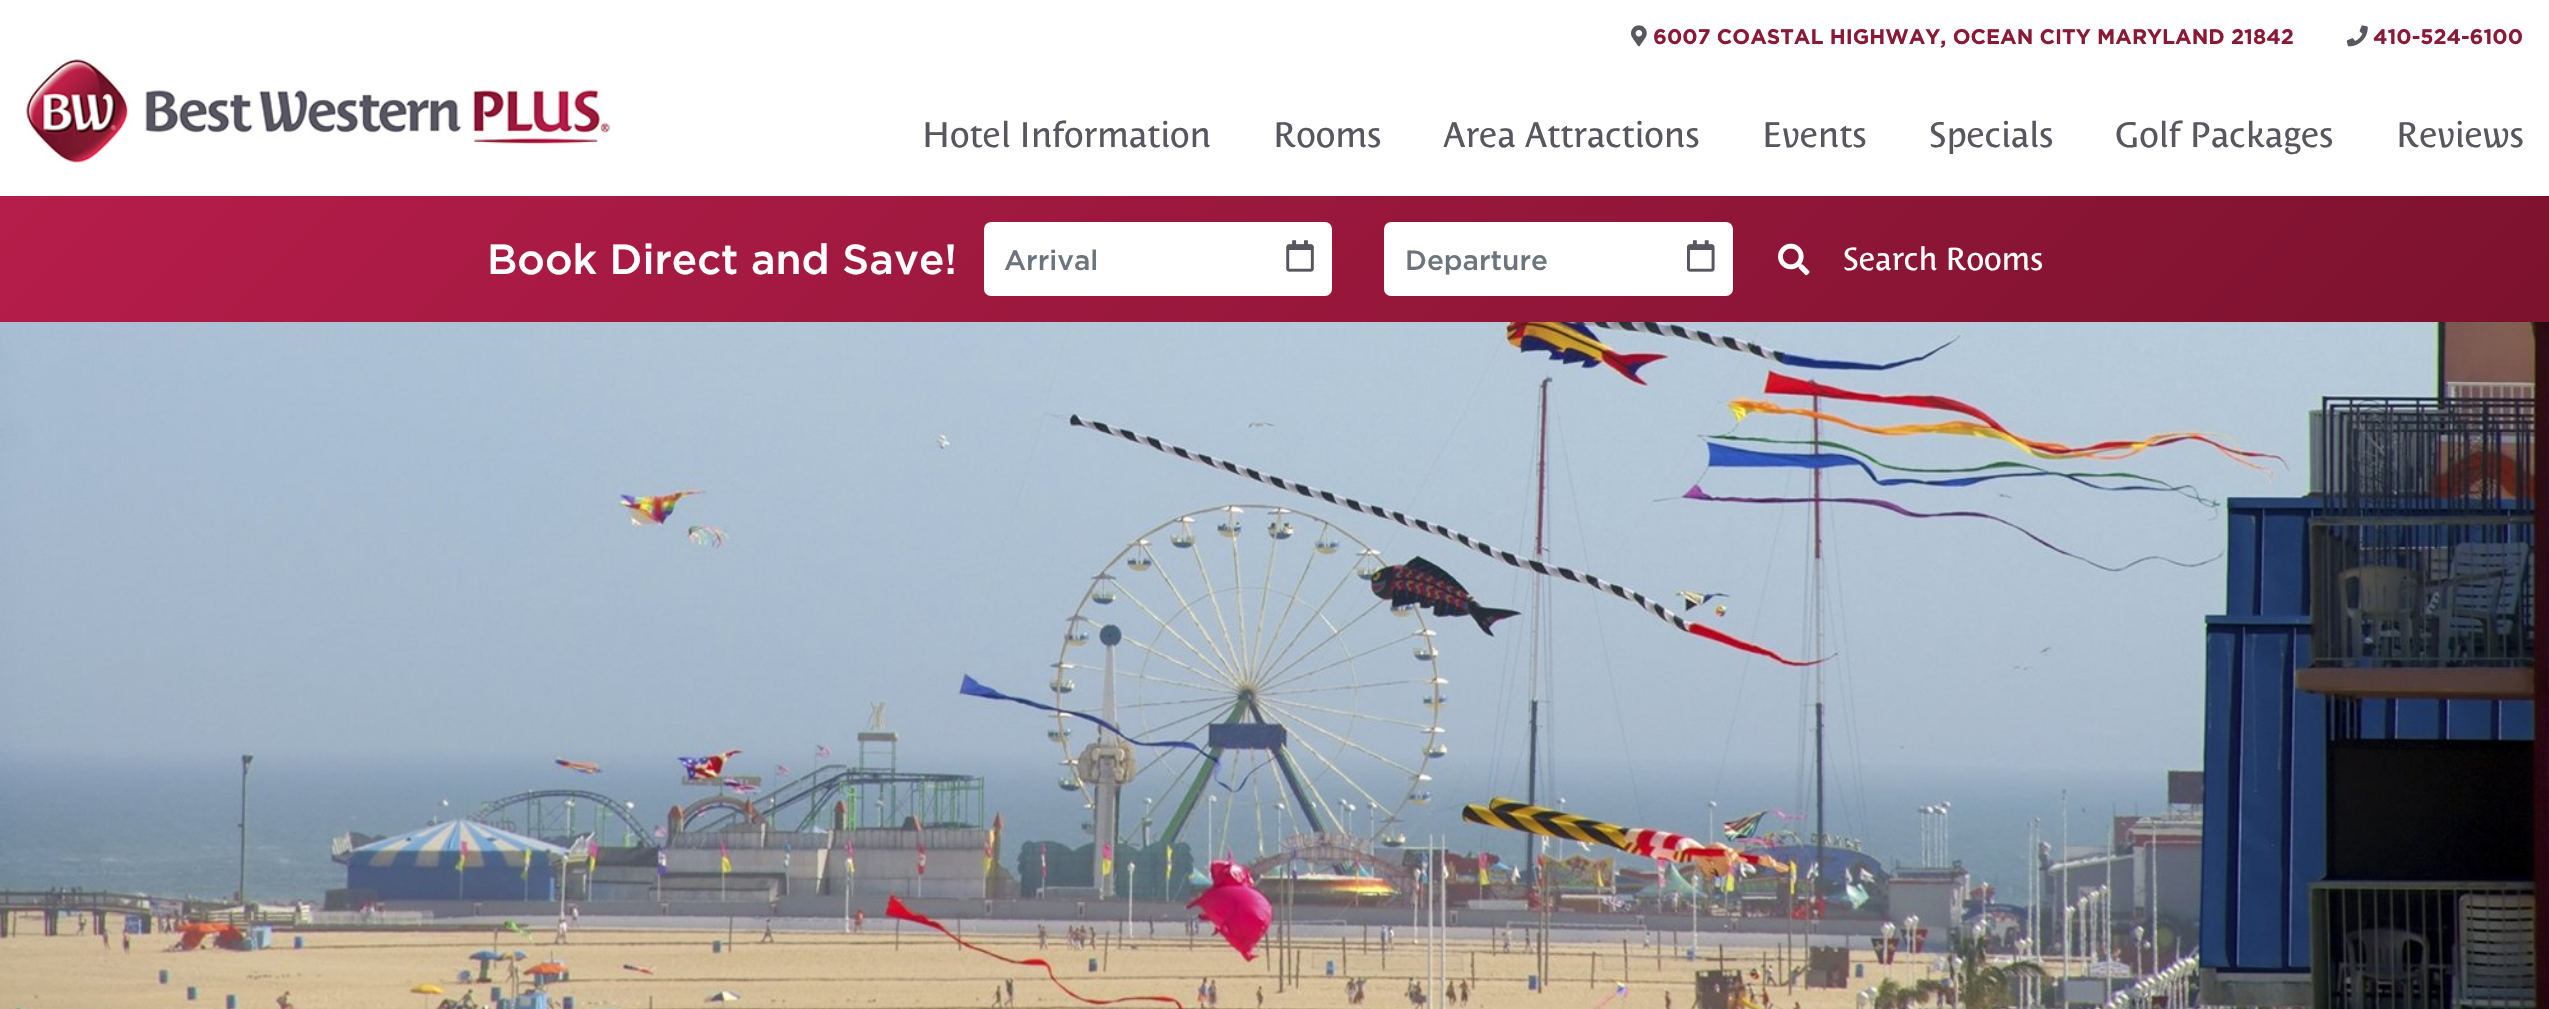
void draw(SkCanvas* c) {
SkPaint p;
p.setAntiAlias(true);
auto F=[&](const char* family, int weight, float size, bool italic = false){SkFontStyle style(weight, SkFontStyle::kNormal_Width,italic ? SkFontStyle::kItalic_Slant : SkFontStyle::kUpright_Slant);SkFont result(fontMgr->matchFamilyStyle(family, style), size);result.setSubpixel(true);return result;};
auto T=[&](const char* s, float x, float y, const SkFont& font){c->drawString(s, x, y, font, p);};
auto R=[&](float x, float y, float w, float h){c->drawRect(SkRect::MakeXYWH(x, y, w, h), p);};
auto I=[&](const char* path, float x, float y, float w, float h){auto image = SkImages::DeferredFromEncodedData(SkData::MakeFromFileName(path));c->drawImageRect(image, SkRect::MakeXYWH(x, y, w, h), SkSamplingOptions());};
c->clear(0xffffffff);
I("1.png",26,59,584,104);
I("2.png",1631,25,16,22);
auto f1 = F("Gotham",700,21);
p.setColor(0xff8b1936);
T("6007 COASTAL HIGHWAY, OCEAN CITY MARYLAND 21842",1653,44,f1);
I("3.png",2346,25,22,22);
T("410-524-6100",2373,44,f1);
auto f2 = F("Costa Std",400,35);
p.setColor(0xff595660);
T("Hotel Information",922,147,f2);
T("Rooms",1273,147,f2);
T("Area Attractions",1443,147,f2);
T("Events",1762,147,f2);
T("Specials",1929,147,f2);
T("Golf Packages",2115,147,f2);
T("Reviews",2396,147,f2);
{
const SkColor colors[] = {0xffb61d4a,0xff7c122e};
const float stops[] = {0,1};
const SkPoint ends[] = {{606,-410}, {1944,928}};
p.setShader(SkGradientShader::MakeLinear(ends, colors, stops, 2, SkTileMode::kClamp));
p.setAlpha(255);
}
R(0,196,2549,126);
auto f3 = F("Gotham",500,42);
p.setShader(nullptr);
p.setColor(0xffffffff);
T("Book Direct and Save!",487,274,f3);
c->drawRoundRect(SkRect::MakeXYWH(986,224,344,70),5,5,p);
p.setStroke(true);
p.setStrokeWidth(4);
c->drawRoundRect(SkRect::MakeXYWH(986,224,344,70),5,5,p);
auto f4 = F("Gotham",500,28);
p.setStroke(false);
p.setColor(0xff6c757d);
T("Arrival",1004,270,f4);
I("4.png",1286,240,28,32);
p.setColor(0xffffffff);
c->drawRoundRect(SkRect::MakeXYWH(1386,224,345,70),5,5,p);
p.setStroke(true);
c->drawRoundRect(SkRect::MakeXYWH(1386,224,345,70),5,5,p);
p.setStroke(false);
p.setColor(0xff6c757d);
T("Departure",1405,270,f4);
I("5.png",1687,240,28,32);
I("6.png",1778,243,32,33);
auto f5 = F("Costa Std",400,31.5);
p.setColor(0xffffffff);
T("Search Rooms",1843,270,f5);
I("7.png",0,322,2549,687);
}
